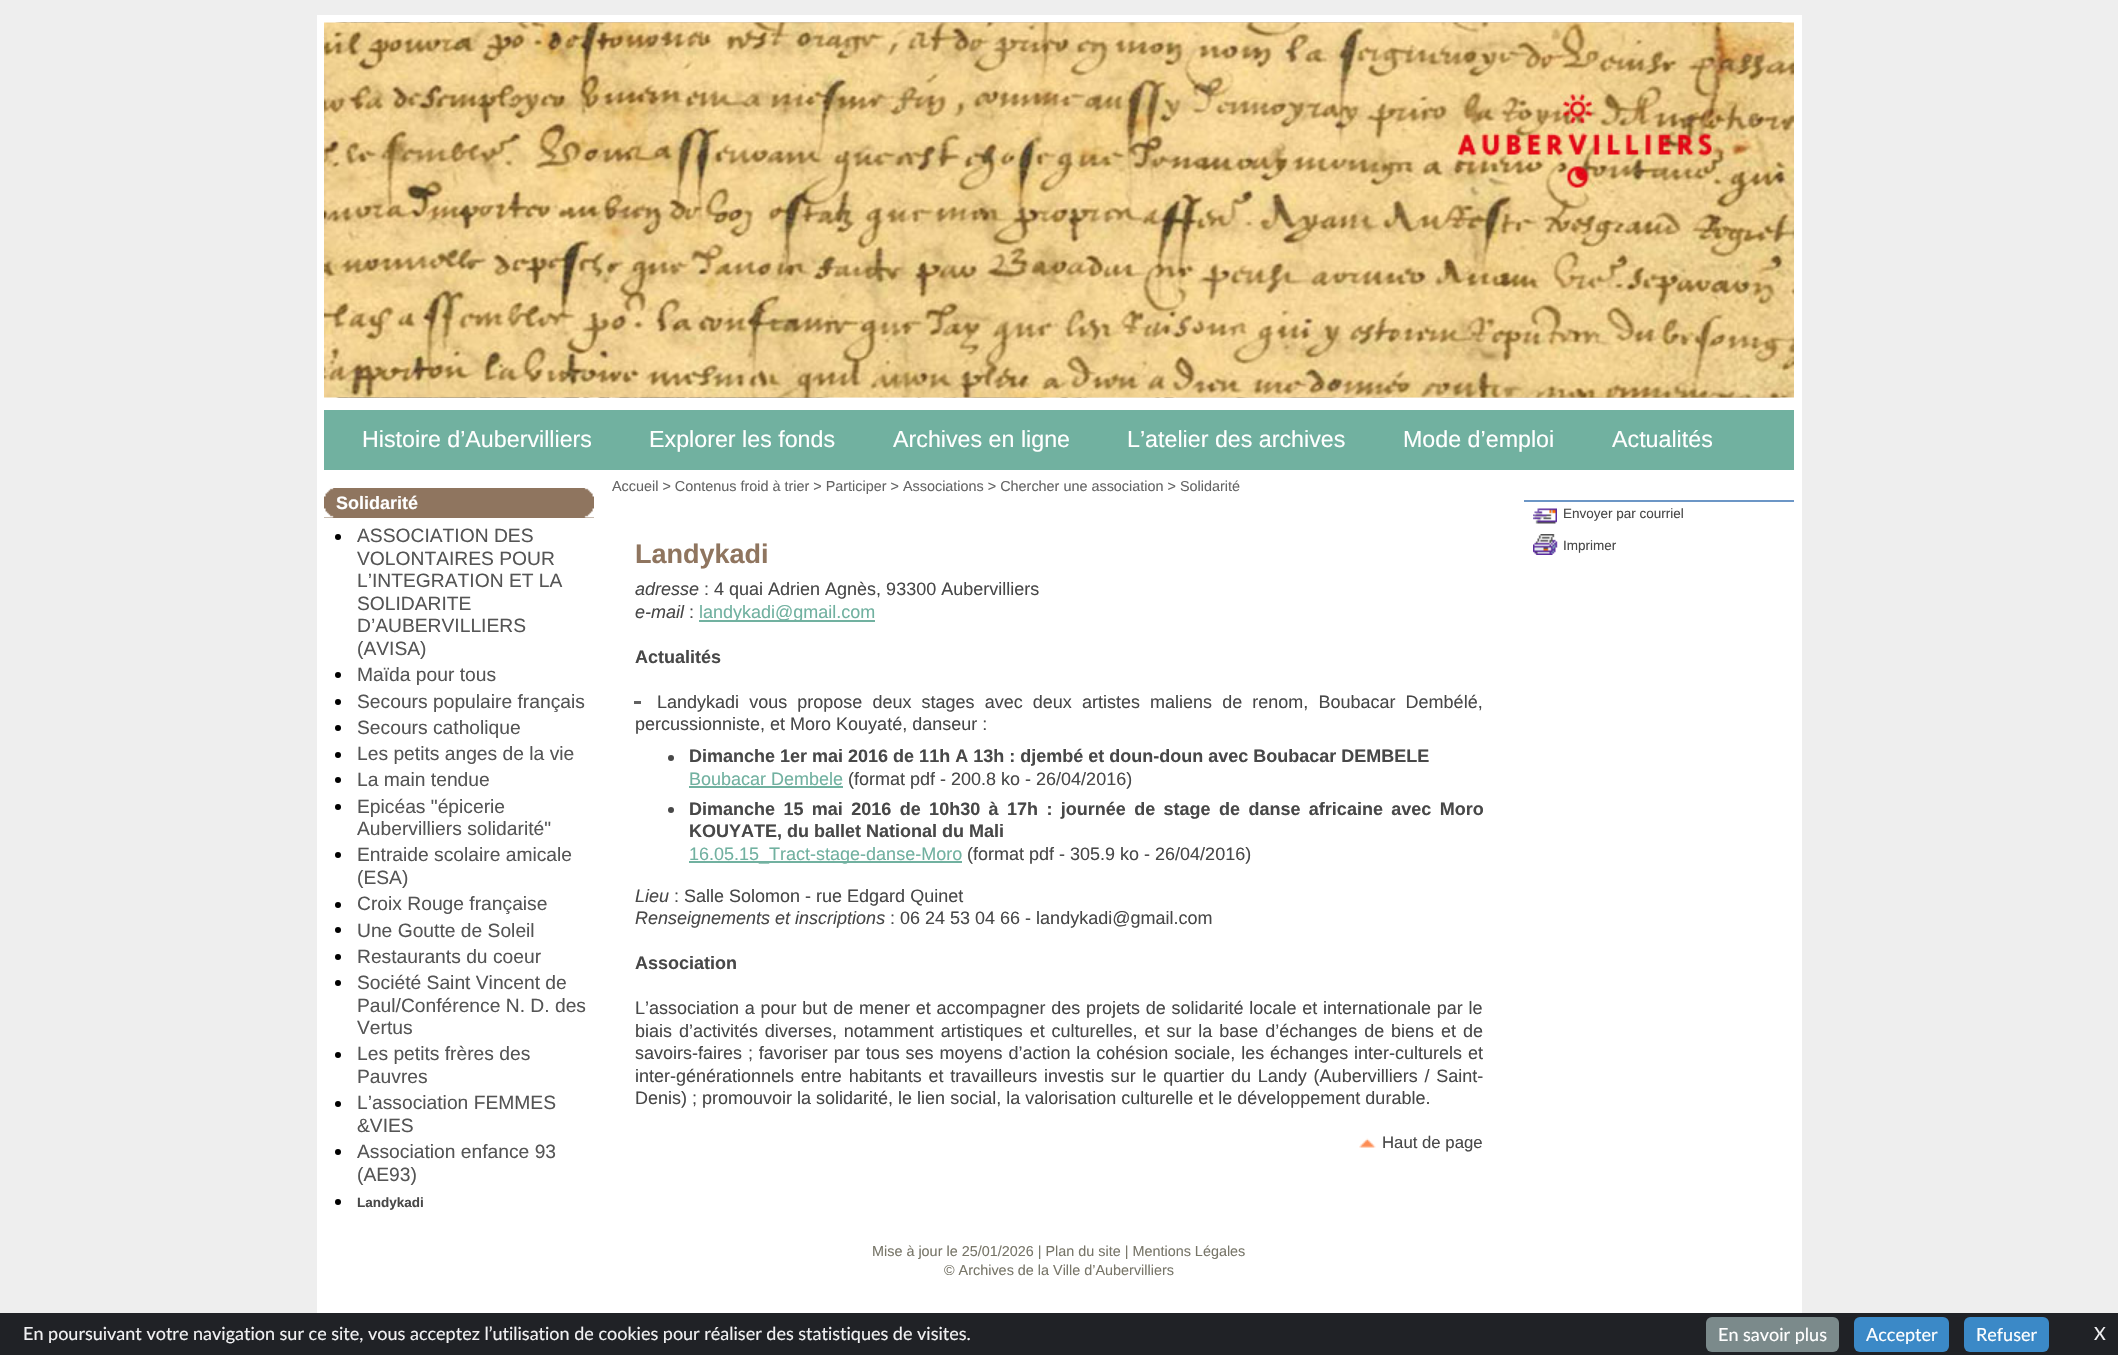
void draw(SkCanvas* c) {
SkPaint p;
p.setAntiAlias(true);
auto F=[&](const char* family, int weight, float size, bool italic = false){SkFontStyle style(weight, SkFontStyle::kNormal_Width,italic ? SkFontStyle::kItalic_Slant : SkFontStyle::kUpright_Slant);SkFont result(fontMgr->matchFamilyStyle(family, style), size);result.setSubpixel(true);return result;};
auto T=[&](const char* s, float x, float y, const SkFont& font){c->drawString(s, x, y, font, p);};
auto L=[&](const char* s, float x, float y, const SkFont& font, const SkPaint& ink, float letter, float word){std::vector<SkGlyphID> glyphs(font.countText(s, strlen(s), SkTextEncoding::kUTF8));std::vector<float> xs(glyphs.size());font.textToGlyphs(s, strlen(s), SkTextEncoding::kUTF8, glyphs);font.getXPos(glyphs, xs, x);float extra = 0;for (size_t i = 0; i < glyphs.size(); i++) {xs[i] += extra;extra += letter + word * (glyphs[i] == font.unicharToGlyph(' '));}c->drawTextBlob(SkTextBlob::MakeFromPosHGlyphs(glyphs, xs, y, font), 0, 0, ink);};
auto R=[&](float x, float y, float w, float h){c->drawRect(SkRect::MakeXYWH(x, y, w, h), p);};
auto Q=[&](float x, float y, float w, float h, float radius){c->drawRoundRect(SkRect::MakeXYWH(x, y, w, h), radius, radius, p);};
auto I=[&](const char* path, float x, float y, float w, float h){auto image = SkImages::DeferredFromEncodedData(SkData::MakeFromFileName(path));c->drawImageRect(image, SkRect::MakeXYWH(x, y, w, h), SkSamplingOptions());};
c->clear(0xffeeeeee);
p.setColor(0xffffffff);
R(317,15,1485,1298);
I("1.png",323,22,1460,376);
I("2.png",324,22,1470,376);
p.setColor(0xff71b1a0);
R(324,410,1470,60);
auto f1 = F("Liberation Sans",400,23.25);
p.setColor(0xffffffff);
T("Histoire d’Aubervilliers",362,447,f1);
T("Explorer les fonds",649,447,f1);
T("Archives en ligne",893,447,f1);
T("L’atelier des archives",1127,447,f1);
T("Mode d’emploi",1403,447,f1);
T("Actualités",1612,447,f1);
p.setColor(0xff8f755f);
R(324,488,270,30);
I("3.png",324,508,10,10);
I("4.png",584,508,10,10);
I("5.png",324,488,10,9);
I("6.png",584,488,10,9);
auto f2 = F("Liberation Sans",700,18);
p.setColor(0xffffffff);
T("Solidarité",336,509,f2);
p.setColor(0xff000000);
c->drawCircle(338,537,3,p);
auto f3 = F("Liberation Sans",400,19.25);
p.setColor(0xff555555);
T("ASSOCIATION DES",357,542,f3);
T("VOLONTAIRES POUR",357,565,f3);
T("L’INTEGRATION ET LA",357,587,f3);
T("SOLIDARITE",357,610,f3);
T("D’AUBERVILLIERS",357,632,f3);
T("(AVISA)",357,655,f3);
p.setColor(0xff000000);
c->drawCircle(338,675,3,p);
p.setColor(0xff555555);
T("Maïda pour tous",357,681,f3);
p.setColor(0xff000000);
c->drawCircle(338,702,3,p);
p.setColor(0xff555555);
T("Secours populaire français",357,708,f3);
p.setColor(0xff000000);
c->drawCircle(338,728,3,p);
p.setColor(0xff555555);
T("Secours catholique",357,734,f3);
p.setColor(0xff000000);
c->drawCircle(338,755,3,p);
p.setColor(0xff555555);
T("Les petits anges de la vie",357,760,f3);
p.setColor(0xff000000);
c->drawCircle(338,780,3,p);
p.setColor(0xff555555);
T("La main tendue",357,786,f3);
p.setColor(0xff000000);
c->drawCircle(338,807,3,p);
p.setColor(0xff555555);
T("Epicéas \"épicerie",357,813,f3);
T("Aubervilliers solidarité\"",357,835,f3);
p.setColor(0xff000000);
c->drawCircle(338,855,3,p);
p.setColor(0xff555555);
T("Entraide scolaire amicale",357,861,f3);
T("(ESA)",357,884,f3);
p.setColor(0xff000000);
c->drawCircle(338,905,3,p);
p.setColor(0xff555555);
T("Croix Rouge française",357,910,f3);
p.setColor(0xff000000);
c->drawCircle(338,930,3,p);
p.setColor(0xff555555);
T("Une Goutte de Soleil",357,937,f3);
p.setColor(0xff000000);
c->drawCircle(338,957,3,p);
p.setColor(0xff555555);
T("Restaurants du coeur",357,963,f3);
p.setColor(0xff000000);
c->drawCircle(338,983,3,p);
p.setColor(0xff555555);
T("Société Saint Vincent de",357,989,f3);
T("Paul/Conférence N. D. des",357,1012,f3);
T("Vertus",357,1034,f3);
p.setColor(0xff000000);
c->drawCircle(338,1055,3,p);
p.setColor(0xff555555);
T("Les petits frères des",357,1060,f3);
T("Pauvres",357,1083,f3);
p.setColor(0xff000000);
c->drawCircle(338,1104,3,p);
p.setColor(0xff555555);
T("L’association FEMMES",357,1109,f3);
T("&VIES",357,1132,f3);
p.setColor(0xff000000);
c->drawCircle(338,1152,3,p);
p.setColor(0xff555555);
T("Association enfance 93",357,1158,f3);
T("(AE93)",357,1181,f3);
p.setColor(0xff000000);
c->drawCircle(338,1202,3,p);
auto f4 = F("Liberation Sans",700,13.5);
p.setColor(0xff484848);
T("Landykadi",357,1207,f4);
auto f5 = F("Liberation Sans",400,14.4);
p.setColor(0xff656565);
T("Accueil > Contenus froid à trier > Participer > Associations > Chercher une association > Solidarité",612,491,f5);
auto f6 = F("Liberation Sans",700,27);
p.setColor(0xff8f755f);
T("Landykadi",635,563,f6);
auto f7 = F("Liberation Sans",400,18,true);
p.setColor(0xff484848);
T("adresse",635,595,f7);
auto f8 = F("Liberation Sans",400,18);
T(": 4 quai Adrien Agnès, 93300 Aubervilliers",704,595,f8);
T("e-mail",635,618,f7);
T(":",689,618,f8);
p.setColor(0xff71b1a0);
R(699,620,176,2);
T("landykadi@gmail.com",699,618,f8);
p.setColor(0xff484848);
T("Actualités",635,663,f2);
p.setColor(0xff616161);
R(634,701,7,3);
p.setColor(0xff484848);
L("Landykadi vous propose deux stages avec deux artistes maliens de renom, Boubacar Dembélé,",657,708,f8,p,0,5.1);
T("percussionniste, et Moro Kouyaté, danseur :",635,730,f8);
c->drawCircle(671,758,3,p);
T("Dimanche 1er mai 2016 de 11h A 13h : djembé et doun-doun avec Boubacar DEMBELE",689,762,f2);
p.setColor(0xff71b1a0);
T("Boubacar Dembele",689,785,f8);
R(689,786,154,2);
p.setColor(0xff484848);
T("(format pdf - 200.8 ko - 26/04/2016)",848,785,f8);
c->drawCircle(671,810,3,p);
L("Dimanche 15 mai 2016 de 10h30 à 17h : journée de stage de danse africaine avec Moro",689,815,f2,p,0,3.4);
T("KOUYATE, du ballet National du Mali",689,837,f2);
p.setColor(0xff71b1a0);
R(689,861,273,2);
T("16.05.15_Tract-stage-danse-Moro",689,860,f8);
p.setColor(0xff484848);
T("(format pdf - 305.9 ko - 26/04/2016)",967,860,f8);
T("Lieu",635,902,f7);
T(": Salle Solomon - rue Edgard Quinet",674,902,f8);
T("Renseignements et inscriptions",635,924,f7);
T(": 06 24 53 04 66 - landykadi@gmail.com",890,924,f8);
T("Association",635,969,f2);
L("L’association a pour but de mener et accompagner des projets de solidarité locale et internationale par le",635,1014,f8,p,0,.75);
L("biais d’activités diverses, notamment artistiques et culturelles, et sur la base d’échanges de biens et de",635,1037,f8,p,0,1.9);
L("savoirs-faires ; favoriser par tous ses moyens d’action la cohésion sociale, les échanges inter-culturels et",635,1059,f8,p,0,.9);
L("inter-générationnels entre habitants et travailleurs investis sur le quartier du Landy (Aubervilliers / Saint-",635,1082,f8,p,0,1.75);
T("Denis) ; promouvoir la solidarité, le lien social, la valorisation culturelle et le développement durable.",635,1104,f8);
I("7.png",1359,1138,17,10);
auto f9 = F("Liberation Sans",400,16.75);
T("Haut de page",1382,1148,f9);
p.setColor(0xff6c96c6);
R(1524,500,270,2);
I("8.png",1533,508,24,16);
auto f10 = F("Liberation Sans",400,13.5);
p.setColor(0xff484848);
T("Envoyer par courriel",1563,518,f10);
I("9.png",1533,534,25,21);
T("Imprimer",1563,550,f10);
p.setColor(0xff787669);
T("Mise à jour le 25/01/2026 | Plan du site | Mentions Légales",872,1256,f5);
T("© Archives de la Ville d’Aubervilliers",944,1275,f5);
p.setColor(0xff202226);
R(0,1313,2118,42);
auto f11 = F("Lato",400,18);
p.setColor(0xfff1f1f3);
T("En poursuivant votre navigation sur ce site, vous acceptez l’utilisation de cookies pour réaliser des statistiques de visites.",23,1340,f11);
p.setColor(0xff7b8a8b);
Q(1706,1317,133,35,6);
p.setColor(0xffffffff);
T("En savoir plus",1718,1341,f11);
p.setColor(0xff3b89c7);
Q(1854,1317,95,35,6);
p.setColor(0xffffffff);
T("Accepter",1866,1341,f11);
p.setColor(0xff3b89c7);
Q(1964,1317,85,35,6);
p.setColor(0xffffffff);
T("Refuser",1976,1341,f11);
p.setColor(0xfff1f1f3);
T("X",2094,1340,f11);
}
